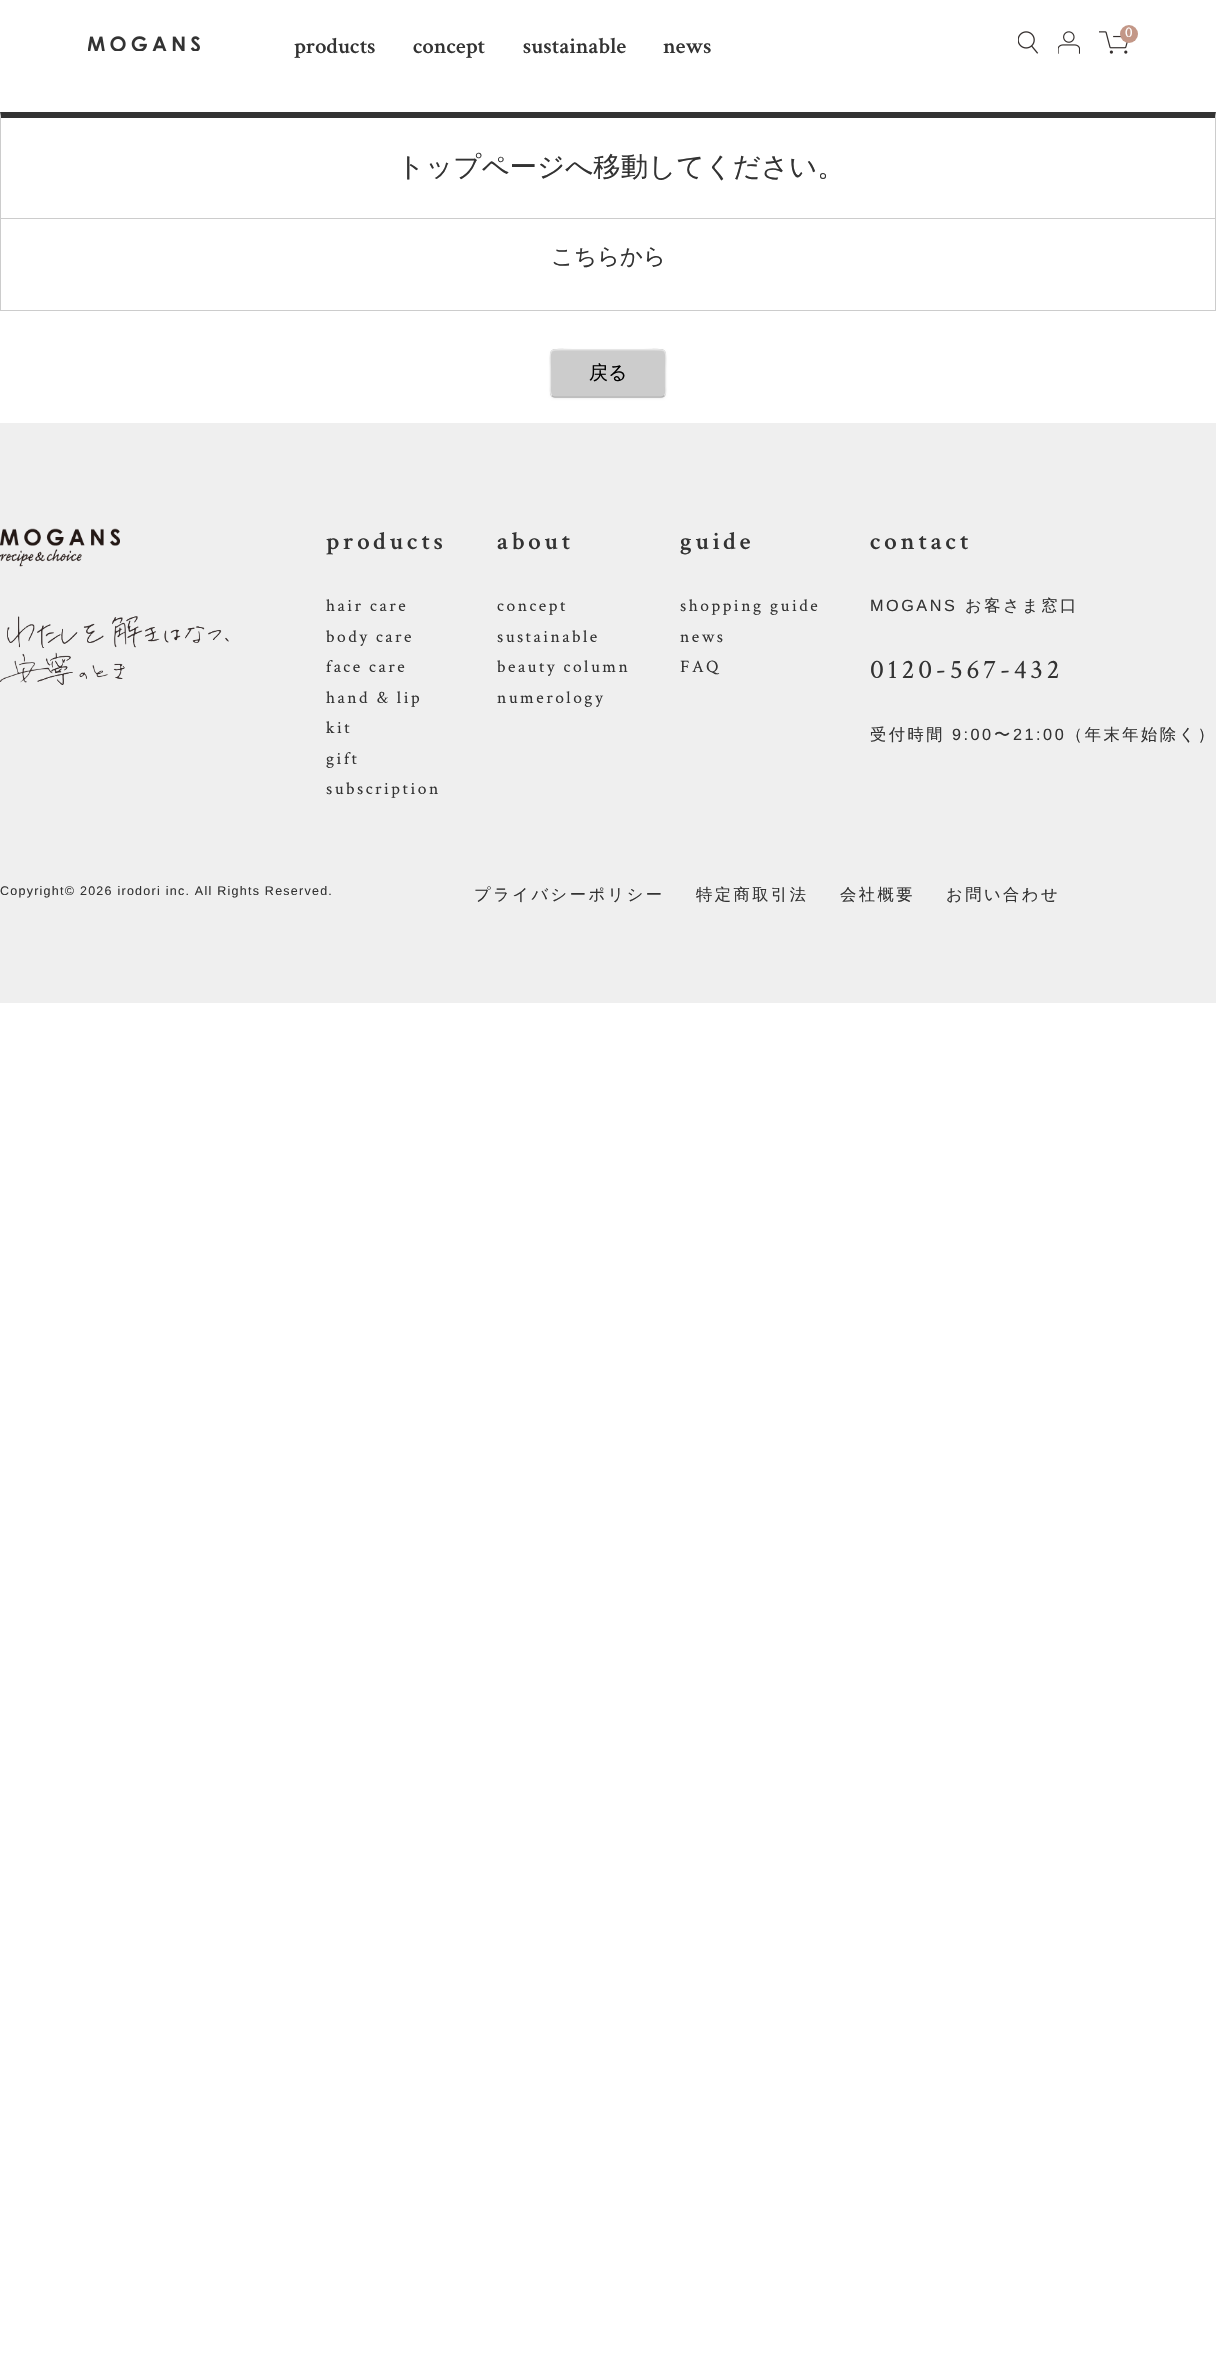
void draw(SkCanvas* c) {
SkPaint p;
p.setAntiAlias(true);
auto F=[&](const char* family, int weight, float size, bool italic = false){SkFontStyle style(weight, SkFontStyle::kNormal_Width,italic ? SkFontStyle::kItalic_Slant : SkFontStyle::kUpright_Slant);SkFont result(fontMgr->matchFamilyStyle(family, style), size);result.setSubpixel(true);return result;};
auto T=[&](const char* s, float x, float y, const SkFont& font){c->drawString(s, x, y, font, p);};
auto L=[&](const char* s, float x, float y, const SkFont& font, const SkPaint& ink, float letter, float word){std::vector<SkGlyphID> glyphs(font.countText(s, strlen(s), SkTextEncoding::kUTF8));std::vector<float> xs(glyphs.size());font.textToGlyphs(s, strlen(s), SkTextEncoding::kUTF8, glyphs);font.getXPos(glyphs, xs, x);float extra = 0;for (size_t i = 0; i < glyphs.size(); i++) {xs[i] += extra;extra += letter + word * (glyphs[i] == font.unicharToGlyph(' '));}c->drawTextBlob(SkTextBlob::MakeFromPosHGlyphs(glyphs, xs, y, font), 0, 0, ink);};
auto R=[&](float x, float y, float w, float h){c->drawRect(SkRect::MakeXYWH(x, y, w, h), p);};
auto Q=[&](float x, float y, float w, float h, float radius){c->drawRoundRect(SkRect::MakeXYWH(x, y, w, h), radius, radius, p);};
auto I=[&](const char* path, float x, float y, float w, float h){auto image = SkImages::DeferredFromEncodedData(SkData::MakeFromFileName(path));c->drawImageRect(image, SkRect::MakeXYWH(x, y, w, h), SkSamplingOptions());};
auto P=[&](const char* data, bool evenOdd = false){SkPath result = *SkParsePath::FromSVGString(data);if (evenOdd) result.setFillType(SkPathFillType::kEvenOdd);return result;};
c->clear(0xffffffff);
I("1.png",1018,31,21,23);
I("2.png",1058,31,22,23);
I("3.png",1099,31,29,23);
p.setColor(0xffc39787);
c->drawCircle(1129,34,9,p);
auto f1 = F("Crimson Text",400,15);
p.setColor(0xffffffff);
T("0",1125,37,f1);
I("4.png",88,36,112,15);
auto f2 = F("Crimson Text",600,22.5);
p.setColor(0xff333333);
T("products",294,53,f2);
T("concept",413,53,f2);
T("sustainable",523,53,f2);
T("news",663,53,f2);
c->drawPath(P("M0 112h1216l-1 6h-1214z"),p);
p.setColor(0xffcccccc);
c->drawPath(P("M1216 112v106h-1v-100z"),p);
c->drawPath(P("M0 218v-106l1 6v100z"),p);
auto f3 = F("WenQuanYi Zen Hei",500,27.5);
p.setColor(0xff333333);
T("トップページへ移動してください。",397,176,f3);
p.setStroke(true);
p.setStrokeWidth(1);
p.setColor(0xffcccccc);
c->drawRect(SkRect::MakeXYWH(.5,218.5,1215,92),p);
auto f4 = F("WenQuanYi Zen Hei",500,22.5);
p.setStroke(false);
p.setColor(0xff333333);
T("こちらから",551,264,f4);
p.setColor(0x0d000000);
p.setMaskFilter(SkMaskFilter::MakeBlur(kNormal_SkBlurStyle, 1));
c->drawRoundRect(SkRect::MakeXYWH(550,350,116,49),5,5,p);
p.setMaskFilter(nullptr);
p.setColor(0xffcccccc);
Q(550,349,116,49,5);
p.setColor(0xffd6d6d6);
c->drawPath(P("M555 351h106c2 0 4 2 4 4c0-10-18-5-22-5h-70c-4 0-22-5-22 5c0-2 2-4 4-4z"),p);
p.setStroke(true);
p.setStrokeWidth(1.2);
p.setColor(0xffb3b3b3);
c->drawPath(P("M664.5 395.5c-1 1-2 1.5-3.5 1.5h-106c-1 0-2.5-.5-3-1.5"),p);
p.setColor(0xffe6e6e6);
c->drawPath(P("M552 395.5c-2.5-2-1.5-7-1.5-9.5v-13c0-27-5-23.5 22-23.5h71c27 0 22-3.5 22 23.5v13c0 2.5 1 7.5-1 9.5"),p);
auto f5 = F("WenQuanYi Zen Hei",500,19);
p.setStroke(false);
p.setColor(0xff000000);
T("戻る",589,379,f5);
p.setColor(0xffefefef);
R(0,423,1216,580);
I("5.png",0,528,120,39);
I("6.png",0,616,229,69);
auto f6 = F("Crimson Text",600,25);
p.setColor(0xff333333);
L("products",326,549,f6,p,3.75,0);
auto f7 = F("Crimson Text",400,17.5);
L("hair care",326,611,f7,p,2.5,0);
L("body care",326,642,f7,p,2.5,0);
L("face care",326,672,f7,p,2.5,0);
L("hand & lip",326,703,f7,p,2.5,0);
L("kit",326,733,f7,p,2.5,0);
L("gift",326,764,f7,p,2.5,0);
L("subscription",326,794,f7,p,2.5,0);
L("about",497,549,f6,p,3.75,0);
L("concept",497,611,f7,p,2.5,0);
L("sustainable",497,642,f7,p,2.5,0);
L("beauty column",497,672,f7,p,2.5,0);
L("numerology",497,703,f7,p,2.5,0);
L("guide",680,549,f6,p,3.75,0);
L("shopping guide",680,611,f7,p,2.5,0);
L("news",680,642,f7,p,2.5,0);
L("FAQ",680,672,f7,p,2.5,0);
L("contact",870,549,f6,p,3.75,0);
auto f8 = F("Liberation Sans",400,16.25);
L("MOGANS",870,611,f8,p,2.5,0);
auto f9 = F("WenQuanYi Zen Hei",500,16.25);
L("お客さま窓口",965,611,f9,p,2.5,0);
auto f10 = F("Crimson Text",400,27.5);
L("0120-567-432",870,678,f10,p,3.75,0);
L("受付時間",870,740,f9,p,2.5,0);
L("9:00",952,740,f8,p,2.5,0);
L("〜",994,740,f9,p,2.5,0);
L("21:00",1013,740,f8,p,2.5,0);
L("（年末年始除く）",1066,740,f9,p,2.5,0);
auto f11 = F("Liberation Sans",400,12.5);
L("Copyright© 2026 irodori inc. All Rights Reserved.",0,895,f11,p,1.25,0);
L("プライバシーポリシー",474,900,f9,p,2.5,0);
L("特定商取引法",696,900,f9,p,2.5,0);
L("会社概要",840,900,f9,p,2.5,0);
L("お問い合わせ",946,900,f9,p,2.5,0);
}
